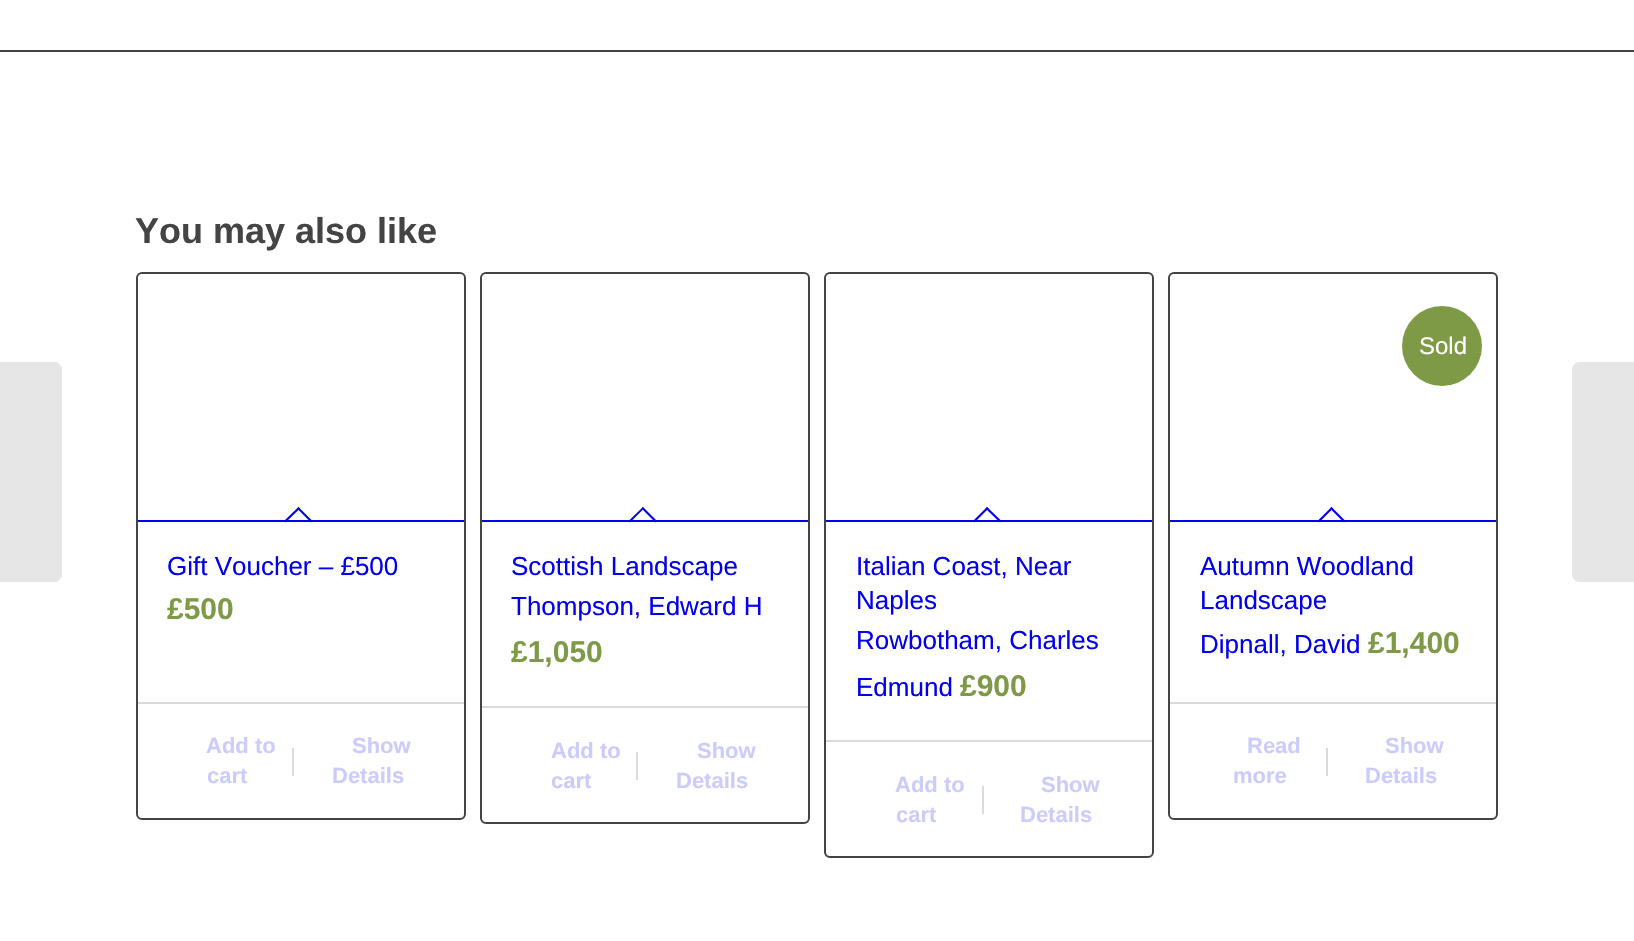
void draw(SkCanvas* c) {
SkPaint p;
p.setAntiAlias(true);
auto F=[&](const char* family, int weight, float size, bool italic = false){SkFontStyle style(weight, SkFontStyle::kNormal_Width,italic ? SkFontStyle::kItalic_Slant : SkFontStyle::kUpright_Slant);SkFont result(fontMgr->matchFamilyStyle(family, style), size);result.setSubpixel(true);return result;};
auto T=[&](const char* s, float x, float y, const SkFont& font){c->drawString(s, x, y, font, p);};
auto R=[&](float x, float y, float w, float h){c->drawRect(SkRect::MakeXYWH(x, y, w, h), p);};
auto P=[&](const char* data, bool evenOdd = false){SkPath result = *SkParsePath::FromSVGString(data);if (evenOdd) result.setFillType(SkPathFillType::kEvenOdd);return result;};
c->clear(0xffffffff);
p.setColor(0xffe6e6e6);
c->drawPath(P("M0 362h54c4.5 0 8 3.5 8 8v204c0 4.5-3.5 8-8 8h-54z"),p);
p.setColor(0xff444444);
R(0,50,1634,2);
auto f1 = F("Liberation Sans",700,36);
T("You may also like",135,243,f1);
p.setStroke(true);
p.setStrokeWidth(2);
c->drawRoundRect(SkRect::MakeXYWH(137,273,328,546),5,5,p);
p.setStroke(false);
p.setColor(0xff0000ee);
R(138,520,326,2);
c->drawPath(P("M298.5 507l14 14l-1.5 1.5l-14-14z"),p);
c->drawPath(P("M298.5 507l1.5 1.5l-14.5 14l-1.5-1.5z"),p);
auto f2 = F("Liberation Sans",400,26);
T("Gift Voucher – £500",167,575,f2);
auto f3 = F("Liberation Sans",700,30);
p.setColor(0xff7e9a47);
T("£500",167,619,f3);
p.setColor(0xffdadada);
R(138,702,326,2);
auto f4 = F("Liberation Sans",700,22);
p.setColor(0xffccccfc);
T("Add to",206,753,f4);
T("cart",207,783,f4);
p.setColor(0xffdadada);
R(292,748,2,28);
p.setColor(0xffccccfc);
T("Show",352,753,f4);
T("Details",332,783,f4);
p.setStroke(true);
p.setColor(0xff444444);
c->drawRoundRect(SkRect::MakeXYWH(481,273,328,550),5,5,p);
p.setStroke(false);
p.setColor(0xff0000ee);
R(482,520,326,2);
c->drawPath(P("M643 507l14 14l-1.5 1.5l-14-14z"),p);
c->drawPath(P("M643 507l1 1.5l-14 14l-1.5-1.5z"),p);
T("Scottish Landscape",511,575,f2);
T("Thompson, Edward H",511,615,f2);
p.setColor(0xff7e9a47);
T("£1,050",511,662,f3);
p.setColor(0xffdadada);
R(482,706,326,2);
p.setColor(0xffccccfc);
T("Add to",551,758,f4);
T("cart",551,788,f4);
p.setColor(0xffdadada);
R(636,752,2,28);
p.setColor(0xffccccfc);
T("Show",697,758,f4);
T("Details",676,788,f4);
p.setStroke(true);
p.setColor(0xff444444);
c->drawRoundRect(SkRect::MakeXYWH(825,273,328,584),5,5,p);
p.setStroke(false);
p.setColor(0xff0000ee);
R(826,520,326,2);
c->drawPath(P("M987 507l14.5 14l-1.5 1.5l-14.5-14z"),p);
c->drawPath(P("M987 507l1.5 1.5l-14 14l-1.5-1.5z"),p);
T("Italian Coast, Near",856,575,f2);
T("Naples",856,609,f2);
T("Rowbotham, Charles",856,649,f2);
T("Edmund",856,696,f2);
p.setColor(0xff7e9a47);
T("£900",960,696,f3);
p.setColor(0xffdadada);
R(826,740,326,2);
p.setColor(0xffccccfc);
T("Add to",895,792,f4);
T("cart",896,822,f4);
p.setColor(0xffdadada);
R(982,786,2,28);
p.setColor(0xffccccfc);
T("Show",1041,792,f4);
T("Details",1020,822,f4);
p.setStroke(true);
p.setColor(0xff444444);
c->drawRoundRect(SkRect::MakeXYWH(1169,273,328,546),5,5,p);
p.setStroke(false);
p.setColor(0xff7e9a47);
c->drawCircle(1442,346,40,p);
auto f5 = F("Liberation Sans",400,24);
p.setColor(0xffffffff);
T("Sold",1419,354,f5);
p.setColor(0xff0000ee);
R(1170,520,326,2);
c->drawPath(P("M1331.5 507l14 14l-1.5 1.5l-14-14z"),p);
c->drawPath(P("M1331.5 507l1.5 1.5l-14 14l-1.5-1.5z"),p);
T("Autumn Woodland",1200,575,f2);
T("Landscape",1200,609,f2);
T("Dipnall, David",1200,653,f2);
p.setColor(0xff7e9a47);
T("£1,400",1368,653,f3);
p.setColor(0xffdadada);
R(1170,702,326,2);
p.setColor(0xffccccfc);
T("Read",1247,753,f4);
T("more",1233,783,f4);
p.setColor(0xffdadada);
R(1326,748,2,28);
p.setColor(0xffccccfc);
T("Show",1385,753,f4);
T("Details",1365,783,f4);
p.setColor(0xffe6e6e6);
c->drawPath(P("M1580 362h54v220h-54c-4.5 0-8-3.5-8-8v-204c0-4.5 3.5-8 8-8z"),p);
}
